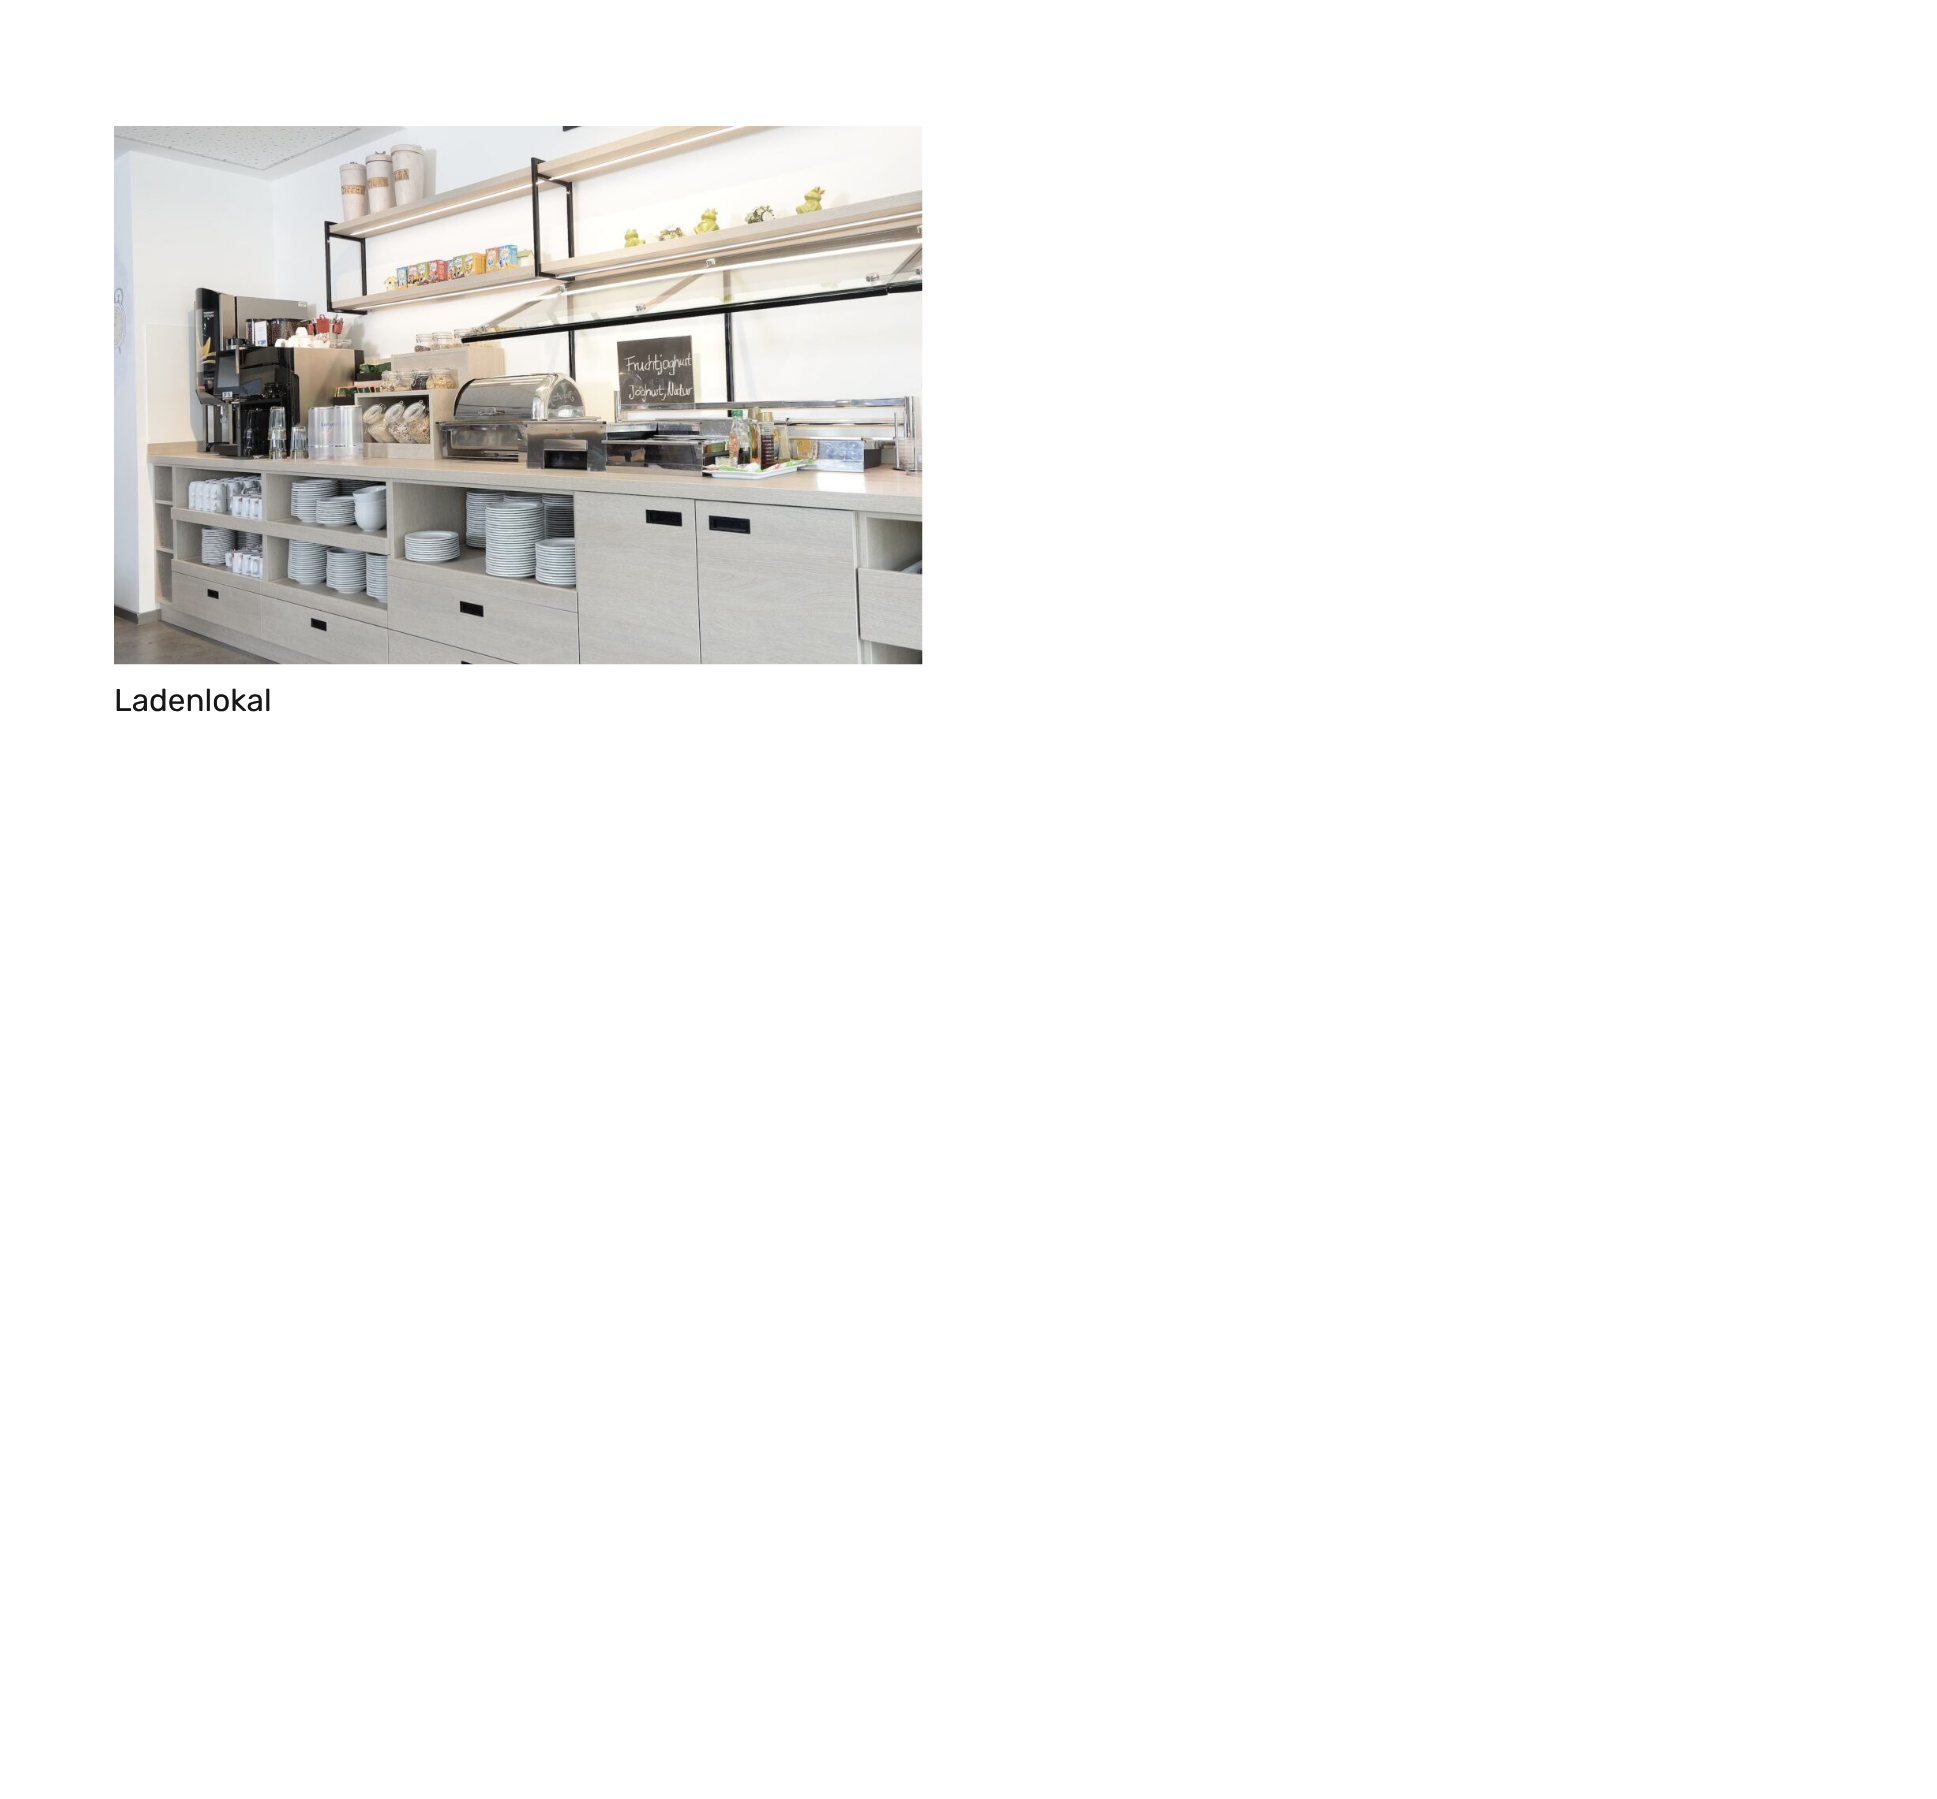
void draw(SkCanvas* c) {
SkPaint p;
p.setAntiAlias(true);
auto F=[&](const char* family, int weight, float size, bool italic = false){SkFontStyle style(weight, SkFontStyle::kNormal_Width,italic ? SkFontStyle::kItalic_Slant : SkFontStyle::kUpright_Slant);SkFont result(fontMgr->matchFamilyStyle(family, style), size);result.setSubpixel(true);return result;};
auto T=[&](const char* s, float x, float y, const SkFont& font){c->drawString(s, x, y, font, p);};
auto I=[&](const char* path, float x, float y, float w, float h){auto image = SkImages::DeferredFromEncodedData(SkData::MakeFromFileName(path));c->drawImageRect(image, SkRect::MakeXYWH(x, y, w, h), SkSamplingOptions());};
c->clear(0xffffffff);
I("1.png",114,126,809,539);
auto f1 = F("Rubik",300,31.5);
p.setColor(0xff181717);
T("Ladenlokal",114,711,f1);
}
